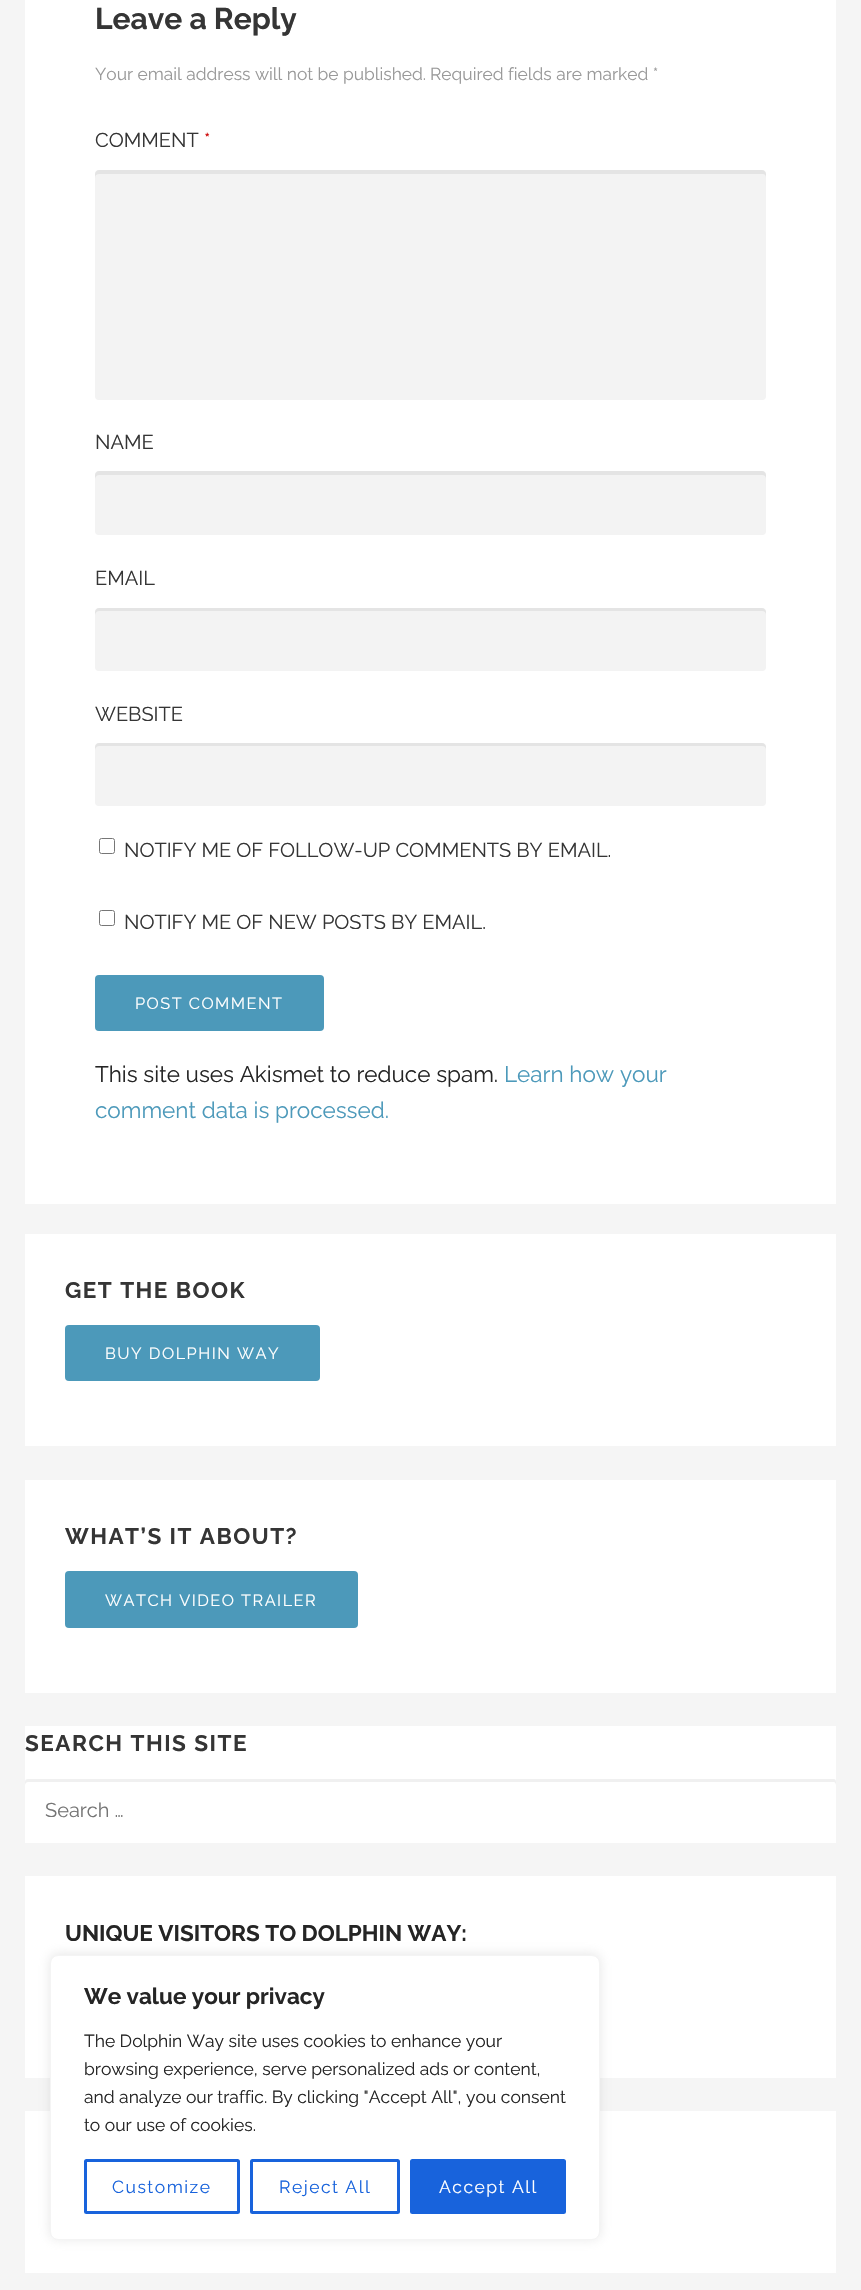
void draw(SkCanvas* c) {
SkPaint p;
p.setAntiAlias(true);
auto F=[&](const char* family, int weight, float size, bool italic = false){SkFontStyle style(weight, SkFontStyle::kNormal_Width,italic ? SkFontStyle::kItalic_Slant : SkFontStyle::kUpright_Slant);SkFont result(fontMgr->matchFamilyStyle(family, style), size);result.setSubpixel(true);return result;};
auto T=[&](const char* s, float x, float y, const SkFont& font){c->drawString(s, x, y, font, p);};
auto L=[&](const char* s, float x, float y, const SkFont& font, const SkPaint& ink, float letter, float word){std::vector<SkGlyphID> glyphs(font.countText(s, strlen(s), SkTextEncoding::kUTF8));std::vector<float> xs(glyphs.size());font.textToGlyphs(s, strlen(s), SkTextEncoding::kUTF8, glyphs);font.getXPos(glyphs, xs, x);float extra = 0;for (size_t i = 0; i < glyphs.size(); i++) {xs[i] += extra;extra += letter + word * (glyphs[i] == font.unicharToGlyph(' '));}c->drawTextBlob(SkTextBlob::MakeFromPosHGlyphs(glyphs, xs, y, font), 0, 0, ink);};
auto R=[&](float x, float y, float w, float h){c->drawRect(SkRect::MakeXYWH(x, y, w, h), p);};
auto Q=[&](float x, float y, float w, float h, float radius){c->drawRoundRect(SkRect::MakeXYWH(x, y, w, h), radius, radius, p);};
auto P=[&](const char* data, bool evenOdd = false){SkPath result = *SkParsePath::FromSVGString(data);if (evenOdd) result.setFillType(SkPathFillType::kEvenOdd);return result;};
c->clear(0xfff5f5f5);
p.setColor(0xffffffff);
R(25,0,811,1204);
auto f1 = F("Raleway",700,30);
p.setColor(0xff353535);
T("Leave a Reply",95,29,f1);
auto f2 = F("Raleway",400,17.4);
p.setColor(0xff999999);
T("Your email address will not be published.",95,80,f2);
T("Required fields are marked *",430,80,f2);
auto f3 = F("Raleway",400,20);
p.setColor(0xff353535);
T("COMMENT",95,147,f3);
p.setColor(0xffcc0000);
T("*",204,147,f3);
p.setColor(0xfff3f3f3);
Q(95,170,671,230,4);
p.setColor(0x0f010101);
c->drawPath(P("M99 174h663c3 0 4 1 4 4v-4c0-2-2-4-4-4h-663c-2 0-4 2-4 4v4c0-3 2-4 4-4z"),p);
p.setColor(0xff353535);
T("NAME",95,449,f3);
p.setColor(0xfff3f3f3);
Q(95,471,671,64,4);
p.setColor(0x0f010101);
c->drawPath(P("M99 475h663c3 0 4 2 4 4v-4c0-2-2-4-4-4h-663c-2 0-4 2-4 4v4c0-2 2-4 4-4z"),p);
p.setColor(0xff353535);
T("EMAIL",95,585,f3);
p.setColor(0xfff3f3f3);
Q(95,608,671,63,4);
p.setColor(0x0f010101);
c->drawPath(P("M99 611h663c3 0 4 2 4 4v-3c0-2-2-4-4-4h-663c-2 0-4 2-4 4v3c0-2 2-4 4-4z"),p);
p.setColor(0xff353535);
T("WEBSITE",95,721,f3);
p.setColor(0xfff3f3f3);
Q(95,743,671,63,4);
p.setColor(0x0f010101);
c->drawPath(P("M99 746h663c3 0 4 2 4 4v-3c0-2-2-4-4-4h-663c-2 0-4 2-4 4v3c0-2 2-4 4-4z"),p);
p.setStroke(true);
p.setStrokeWidth(1);
p.setColor(0xff767676);
c->drawRoundRect(SkRect::MakeXYWH(99.5,838.5,15,15),2,2,p);
p.setStroke(false);
p.setColor(0xff353535);
T("NOTIFY ME OF FOLLOW-UP COMMENTS BY EMAIL.",124,857,f3);
p.setStroke(true);
p.setColor(0xff767676);
c->drawRoundRect(SkRect::MakeXYWH(99.5,910.5,15,15),2,2,p);
p.setStroke(false);
p.setColor(0xff353535);
T("NOTIFY ME OF NEW POSTS BY EMAIL.",124,929,f3);
p.setColor(0xff4c99ba);
Q(95,975,229,56,4);
auto f4 = F("Raleway",400,16.25);
p.setColor(0xffffffff);
L("POST COMMENT",135,1009,f4,p,1.5,0);
auto f5 = F("Raleway",400,22.5);
p.setColor(0xff252525);
T("This site uses Akismet to reduce spam.",95,1082,f5);
p.setColor(0xff4c99ba);
T("Learn how your",504,1082,f5);
T("comment data is processed.",95,1118,f5);
p.setColor(0xffffffff);
R(25,1234,811,212);
auto f6 = F("Raleway",700,22.5);
p.setColor(0xff353535);
L("GET THE BOOK",65,1298,f6,p,1.5,0);
p.setColor(0xff4c99ba);
Q(65,1325,255,56,4);
p.setColor(0xffffffff);
L("BUY DOLPHIN WAY",105,1359,f4,p,1.5,0);
R(25,1480,811,213);
p.setColor(0xff353535);
L("WHAT’S IT ABOUT?",65,1544,f6,p,1.5,0);
p.setColor(0xff4c99ba);
Q(65,1571,293,57,4);
p.setColor(0xffffffff);
L("WATCH VIDEO TRAILER",105,1606,f4,p,1.5,0);
R(25,1726,811,117);
p.setColor(0xff353535);
L("SEARCH THIS SITE",25,1751,f6,p,1.5,0);
p.setColor(0xfff0f0f0);
c->drawPath(P("M28 1782h806c1 0 2 2 2 3v-3c0-2-1-3-2-3h-806c-2 0-3 1-3 3v3c0-1 1-3 3-3z"),p);
p.setColor(0xff757575);
T("Search …",45,1817,f3);
p.setColor(0xffffffff);
R(25,1876,811,202);
p.setColor(0xff252525);
T("UNIQUE VISITORS TO DOLPHIN WAY:",65,1941,f6);
p.setColor(0xffffffff);
R(25,2111,811,162);
p.setColor(0x4dacabab);
p.setMaskFilter(SkMaskFilter::MakeBlur(kNormal_SkBlurStyle, 6));
c->drawRoundRect(SkRect::MakeXYWH(50,1954,550,285),8,8,p);
p.setMaskFilter(nullptr);
p.setColor(0xffffffff);
c->drawRoundRect(SkRect::MakeXYWH(50.5,1955.5,549,284),7.5,7.5,p);
p.setStroke(true);
p.setColor(0xfff4f4f4);
c->drawRoundRect(SkRect::MakeXYWH(50.5,1955.5,549,284),7.5,7.5,p);
p.setStroke(false);
p.setColor(0xff252525);
T("We value your privacy",84,2004,f6);
auto f7 = F("Raleway",400,17.5);
T("The Dolphin Way site uses cookies to enhance your",84,2047,f7);
T("browsing experience, serve personalized ads or content,",84,2075,f7);
T("and analyze our traffic. By clicking \"Accept All\", you consent",84,2103,f7);
T("to our use of cookies.",84,2131,f7);
p.setStroke(true);
p.setStrokeWidth(3);
p.setColor(0xff1863dc);
c->drawRoundRect(SkRect::MakeXYWH(85.5,2160.5,153,52),1,1,p);
p.setStroke(false);
L("Customize",112,2193,f7,p,1.5,0);
p.setStroke(true);
c->drawRoundRect(SkRect::MakeXYWH(251.5,2160.5,147,52),1,1,p);
p.setStroke(false);
L("Reject All",279,2193,f7,p,1.5,0);
c->drawRoundRect(SkRect::MakeXYWH(411.5,2160.5,153,52),1,1,p);
p.setStroke(true);
c->drawRoundRect(SkRect::MakeXYWH(411.5,2160.5,153,52),1,1,p);
p.setStroke(false);
p.setColor(0xffffffff);
L("Accept All",439,2193,f7,p,1.5,0);
}
